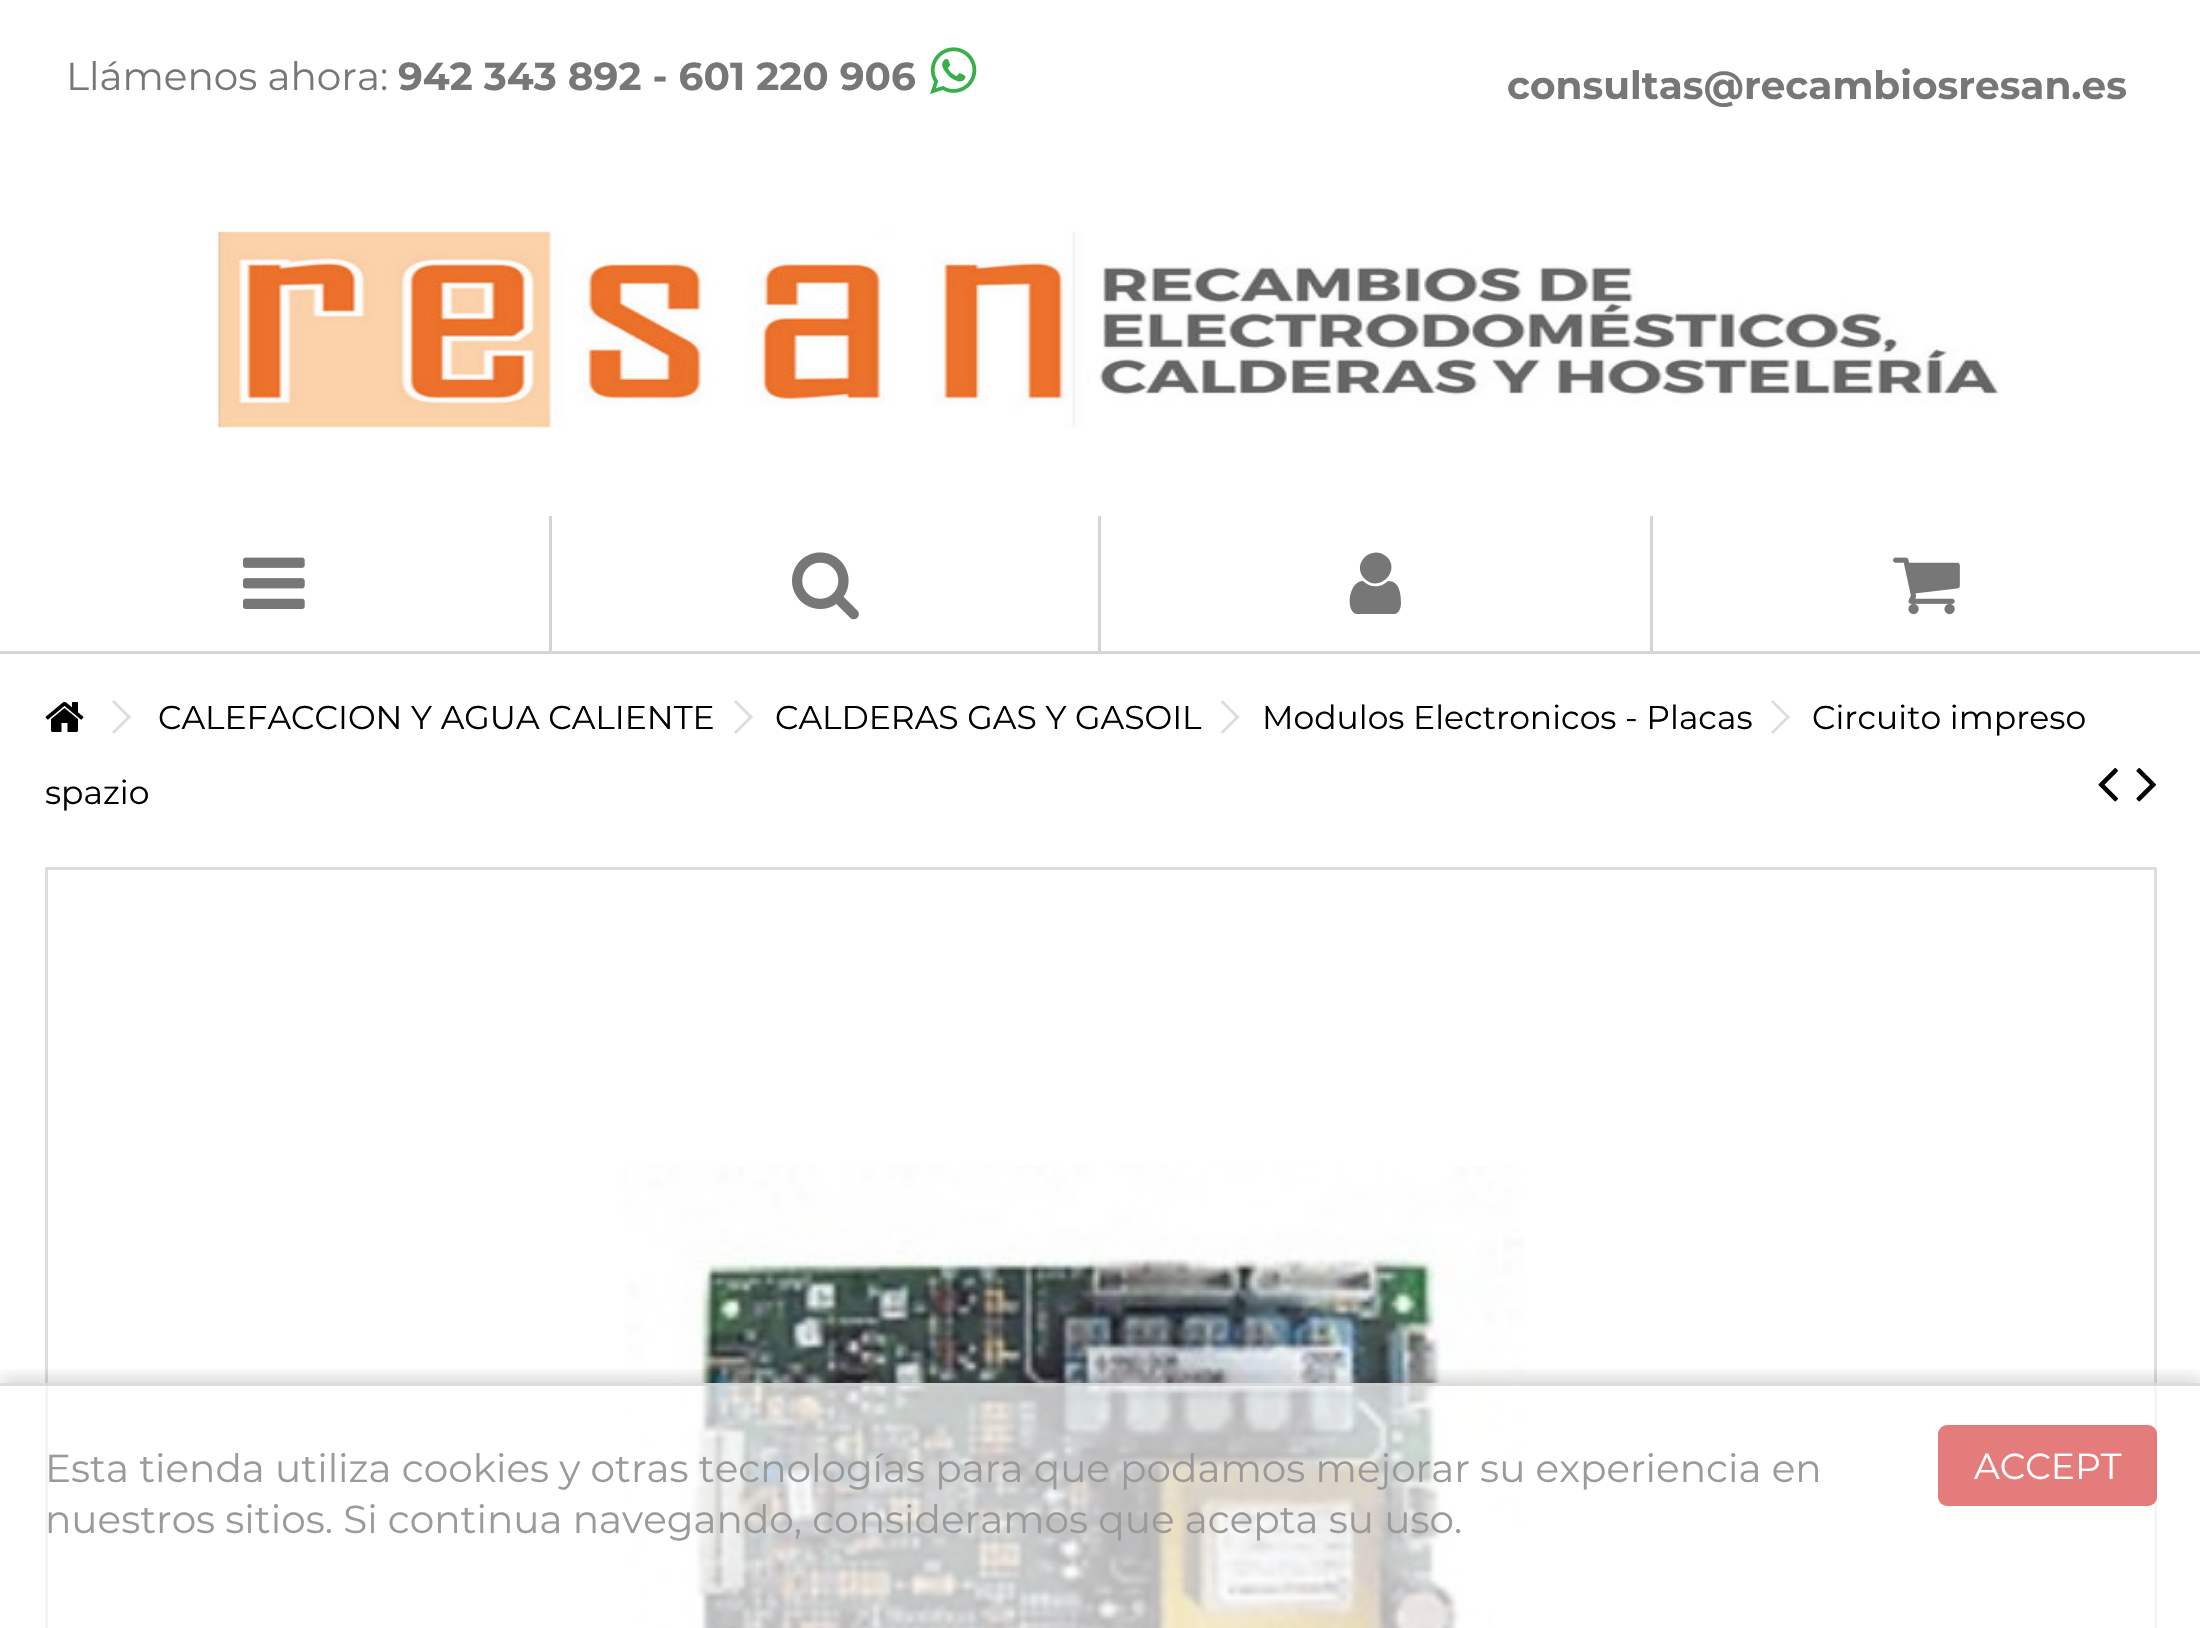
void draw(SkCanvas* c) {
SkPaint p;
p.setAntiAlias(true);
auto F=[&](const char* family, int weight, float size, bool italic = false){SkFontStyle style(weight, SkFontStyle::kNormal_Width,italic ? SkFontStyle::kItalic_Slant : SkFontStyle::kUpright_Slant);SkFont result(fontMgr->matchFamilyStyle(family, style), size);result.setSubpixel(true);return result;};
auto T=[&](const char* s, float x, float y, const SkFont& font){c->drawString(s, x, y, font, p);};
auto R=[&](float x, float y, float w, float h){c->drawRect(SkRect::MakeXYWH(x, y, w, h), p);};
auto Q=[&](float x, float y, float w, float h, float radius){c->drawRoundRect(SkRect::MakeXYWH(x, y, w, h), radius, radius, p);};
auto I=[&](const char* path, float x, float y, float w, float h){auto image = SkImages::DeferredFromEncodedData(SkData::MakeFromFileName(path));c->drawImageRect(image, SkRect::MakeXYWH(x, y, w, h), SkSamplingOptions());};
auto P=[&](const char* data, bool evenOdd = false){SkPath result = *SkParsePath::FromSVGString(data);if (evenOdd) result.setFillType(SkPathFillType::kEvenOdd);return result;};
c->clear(0xffffffff);
auto f1 = F("Montserrat",400,39);
p.setColor(0xff777777);
T("Llámenos ahora:",66,90,f1);
auto f2 = F("Montserrat",700,39);
T("942 343 892 - 601 220 906",398,90,f2);
I("1.png",930,47,47,47);
T("consultas@recambiosresan.es",1507,99,f2);
p.setColor(0xffd6d4d4);
R(0,651,2200,3);
I("2.png",215,231,1785,197);
R(549,516,3,135);
I("3.png",243,557,62,52);
R(1098,516,3,135);
I("4.png",792,552,67,68);
R(1650,516,3,135);
p.setColor(0xff777777);
c->drawPath(P("M1401 603c0 5-2 10-6 11h-31h-8c-11-4-7-33 7-33c7 7 18 7 25 0c12 0 13 14 13 22zm-14-46c14 14-8 36-22 22c-15-15 7-36 22-22z"),p);
I("5.png",1893,557,67,58);
I("6.png",45,701,39,31);
p.setColor(0xffdddddd);
c->drawPath(P("M114 700l17 17l-2 2l-17-17z"),p);
c->drawPath(P("M129 715l2 2l-17 17l-2-2z"),p);
auto f3 = F("Montserrat",400,33);
p.setColor(0xff000000);
T("CALEFACCION Y AGUA CALIENTE",158,729,f3);
p.setColor(0xffdddddd);
c->drawPath(P("M736 700l17 17l-2 2l-17-17z"),p);
c->drawPath(P("M751 715l2 2l-17 17l-2-2z"),p);
p.setColor(0xff000000);
T("CALDERAS GAS Y GASOIL",775,729,f3);
p.setColor(0xffdddddd);
c->drawPath(P("M1222.5 700l17 17l-2 2l-17-17z"),p);
c->drawPath(P("M1237.5 715l2 2l-17 17l-2-2z"),p);
p.setColor(0xff000000);
T("Modulos Electronicos - Placas",1262,729,f3);
p.setColor(0xffdddddd);
c->drawPath(P("M1773 700l17 17l-2 2l-17-17z"),p);
c->drawPath(P("M1788 715l2 2l-17 17l-2-2z"),p);
p.setColor(0xff000000);
T("Circuito impreso",1812,729,f3);
T("spazio",45,804,f3);
I("7.png",2098,768,20,34);
I("8.png",2136,768,20,34);
p.setStroke(true);
p.setStrokeWidth(3);
p.setColor(0xffdddddd);
c->drawRect(SkRect::MakeXYWH(46.5,868.5,2109,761),p);
I("9.png",623,1166,901,462);
c->save();
c->clipRect(SkRect::MakeXYWH(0,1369,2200,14));
p.setStroke(false);
p.setColor(0x24000000);
p.setMaskFilter(SkMaskFilter::MakeBlur(kNormal_SkBlurStyle, 7.5));
c->drawRect(SkRect::MakeXYWH(0,1377,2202,246),p);
p.setMaskFilter(nullptr);
c->restore();
p.setColor(0xb3ffffff);
R(45,1383,2112,245);
p.setColor(0xb3cecece);
R(0,1383,2200,3);
p.setColor(0xff9a9a9a);
T("Esta tienda utiliza cookies y otras tecnologías para que podamos mejorar su experiencia en",45,1482,f1);
T("nuestros sitios. Si continua navegando, consideramos que acepta su uso.",45,1533,f1);
p.setColor(0xb3d94545);
Q(1938,1425,219,81,9);
auto f4 = F("Montserrat",400,36);
p.setColor(0xffffffff);
T("ACCEPT",1974,1479,f4);
}
